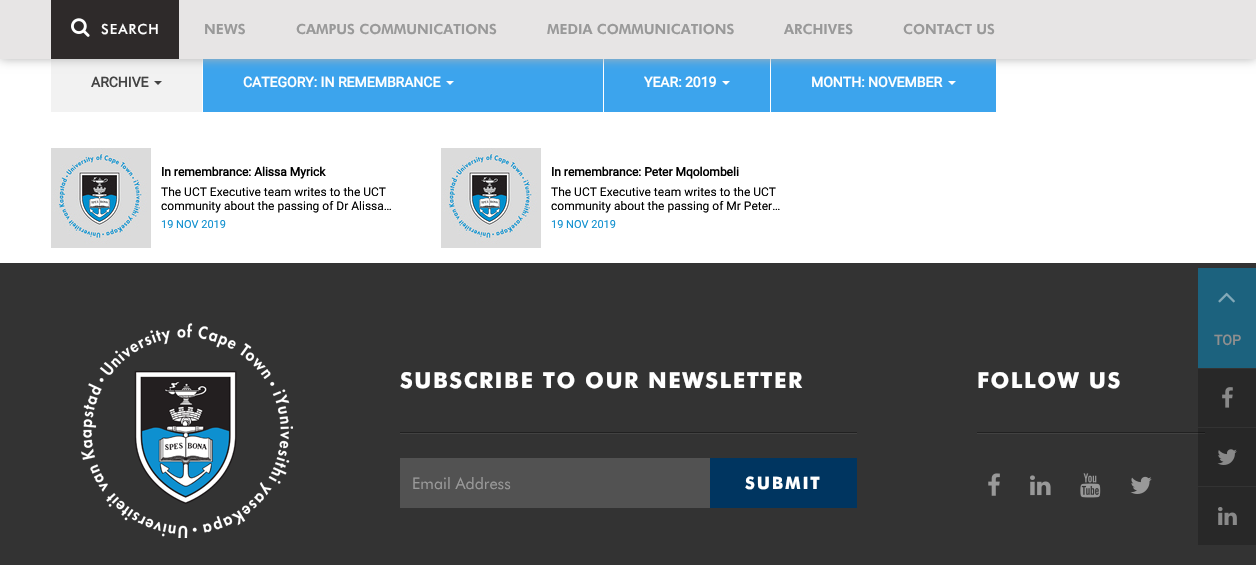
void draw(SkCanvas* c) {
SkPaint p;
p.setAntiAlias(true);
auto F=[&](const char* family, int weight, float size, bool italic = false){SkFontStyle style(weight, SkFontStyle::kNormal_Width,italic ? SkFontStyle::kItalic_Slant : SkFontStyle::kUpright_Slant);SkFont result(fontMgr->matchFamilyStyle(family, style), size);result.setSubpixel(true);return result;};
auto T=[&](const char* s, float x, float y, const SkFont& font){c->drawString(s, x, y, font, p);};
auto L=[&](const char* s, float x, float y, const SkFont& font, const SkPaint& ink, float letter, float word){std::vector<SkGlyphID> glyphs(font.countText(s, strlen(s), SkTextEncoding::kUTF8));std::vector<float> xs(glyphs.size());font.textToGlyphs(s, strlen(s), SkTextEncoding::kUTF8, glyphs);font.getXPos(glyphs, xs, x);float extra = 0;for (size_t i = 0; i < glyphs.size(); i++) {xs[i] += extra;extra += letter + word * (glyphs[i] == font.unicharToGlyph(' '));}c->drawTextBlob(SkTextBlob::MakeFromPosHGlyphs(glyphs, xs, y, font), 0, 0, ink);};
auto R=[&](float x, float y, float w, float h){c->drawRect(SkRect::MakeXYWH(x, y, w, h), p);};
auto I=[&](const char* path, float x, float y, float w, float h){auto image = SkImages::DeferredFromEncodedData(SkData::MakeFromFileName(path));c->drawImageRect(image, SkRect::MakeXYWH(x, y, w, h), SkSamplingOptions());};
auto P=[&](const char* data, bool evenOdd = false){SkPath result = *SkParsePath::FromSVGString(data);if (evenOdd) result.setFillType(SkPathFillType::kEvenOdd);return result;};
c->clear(0xffffffff);
p.setColor(0xfff2f2f2);
R(51,59,151,53);
p.setColor(0xff3ca4ed);
R(203,59,400,53);
R(604,59,166,53);
R(771,59,225,53);
p.setColor(0xffb3b3b3);
p.setMaskFilter(SkMaskFilter::MakeBlur(kNormal_SkBlurStyle, 5));
c->drawRect(SkRect::MakeXYWH(0,0,1256,59),p);
p.setMaskFilter(nullptr);
p.setColor(0xffe7e5e5);
R(0,0,1256,59);
p.setColor(0xff2e2a2a);
R(51,0,128,59);
I("1.png",71,18,19,19);
auto f1 = F("Futura",500,14);
p.setColor(0xffffffff);
L("SEARCH",101,34,f1,p,1,0);
auto f2 = F("Futura",900,14);
p.setColor(0xff999999);
T("NEWS",204,34,f2);
T("CAMPUS COMMUNICATIONS",296,34,f2);
T("MEDIA COMMUNICATIONS",547,34,f2);
T("ARCHIVES",784,34,f2);
T("CONTACT US",903,34,f2);
auto f3 = F("Roboto",700,14);
p.setColor(0xff444444);
T("ARCHIVE",91,87,f3);
c->drawPath(P("M154 81h8l-4 4z"),p);
p.setColor(0xffffffff);
T("CATEGORY: IN REMEMBRANCE",243,87,f3);
c->drawPath(P("M446 81h8l-4 4z"),p);
T("YEAR: 2019",644,87,f3);
c->drawPath(P("M722 81h8l-4 4z"),p);
T("MONTH: NOVEMBER",811,87,f3);
c->drawPath(P("M948 81h8l-4 4z"),p);
I("2.png",51,148,100,100);
auto f4 = F("Roboto",700,12);
p.setColor(0xff000000);
T("In remembrance: Alissa Myrick",161,176,f4);
auto f5 = F("Roboto",400,12);
T("The UCT Executive team writes to the UCT",161,196,f5);
T("community about the passing of Dr Alissa…",161,210,f5);
auto f6 = F("Roboto",400,11);
p.setColor(0xff0e8fcf);
T("19 NOV 2019",161,228,f6);
I("2.png",441,148,100,100);
p.setColor(0xff000000);
T("In remembrance: Peter Mqolombeli",551,176,f4);
T("The UCT Executive team writes to the UCT",551,196,f5);
T("community about the passing of Mr Peter…",551,210,f5);
p.setColor(0xff0e8fcf);
T("19 NOV 2019",551,228,f6);
p.setColor(0xff333333);
R(0,263,1256,302);
p.setColor(0xff1c627e);
R(1198,268,58,100);
I("3.png",1218,292,17,11);
p.setColor(0xff8f8f8f);
T("TOP",1214,345,f3);
p.setColor(0xff282828);
R(1198,369,58,58);
I("4.png",1222,387,11,21);
p.setColor(0xff272727);
R(1198,428,58,58);
I("5.png",1217,449,20,16);
p.setColor(0xff282828);
R(1198,487,58,58);
I("6.png",1218,507,19,18);
I("7.png",81,323,212,215);
auto f7 = F("Futura",700,22);
p.setColor(0xffffffff);
L("SUBSCRIBE TO OUR NEWSLETTER",400,388,f7,p,1.5,0);
p.setColor(0xff212121);
R(400,432,457,1);
p.setColor(0xff424242);
R(400,433,457,1);
p.setColor(0xff525252);
R(400,458,310,50);
auto f8 = F("Futura",400,16);
p.setColor(0xff999999);
T("Email Address",412,489,f8);
p.setColor(0xff003560);
R(710,458,147,50);
auto f9 = F("Futura",700,17);
p.setColor(0xffffffff);
L("SUBMIT",745,489,f9,p,1.75,0);
L("FOLLOW US",977,388,f7,p,1.5,0);
p.setColor(0xff212121);
R(977,432,228,1);
p.setColor(0xff191919);
R(1198,432,7,1);
p.setColor(0xff424242);
R(977,433,228,1);
p.setColor(0xff333333);
R(1198,433,7,1);
I("8.png",988,473,12,23);
I("9.png",1030,475,21,21);
I("10.png",1080,473,21,25);
I("11.png",1130,476,22,18);
}
